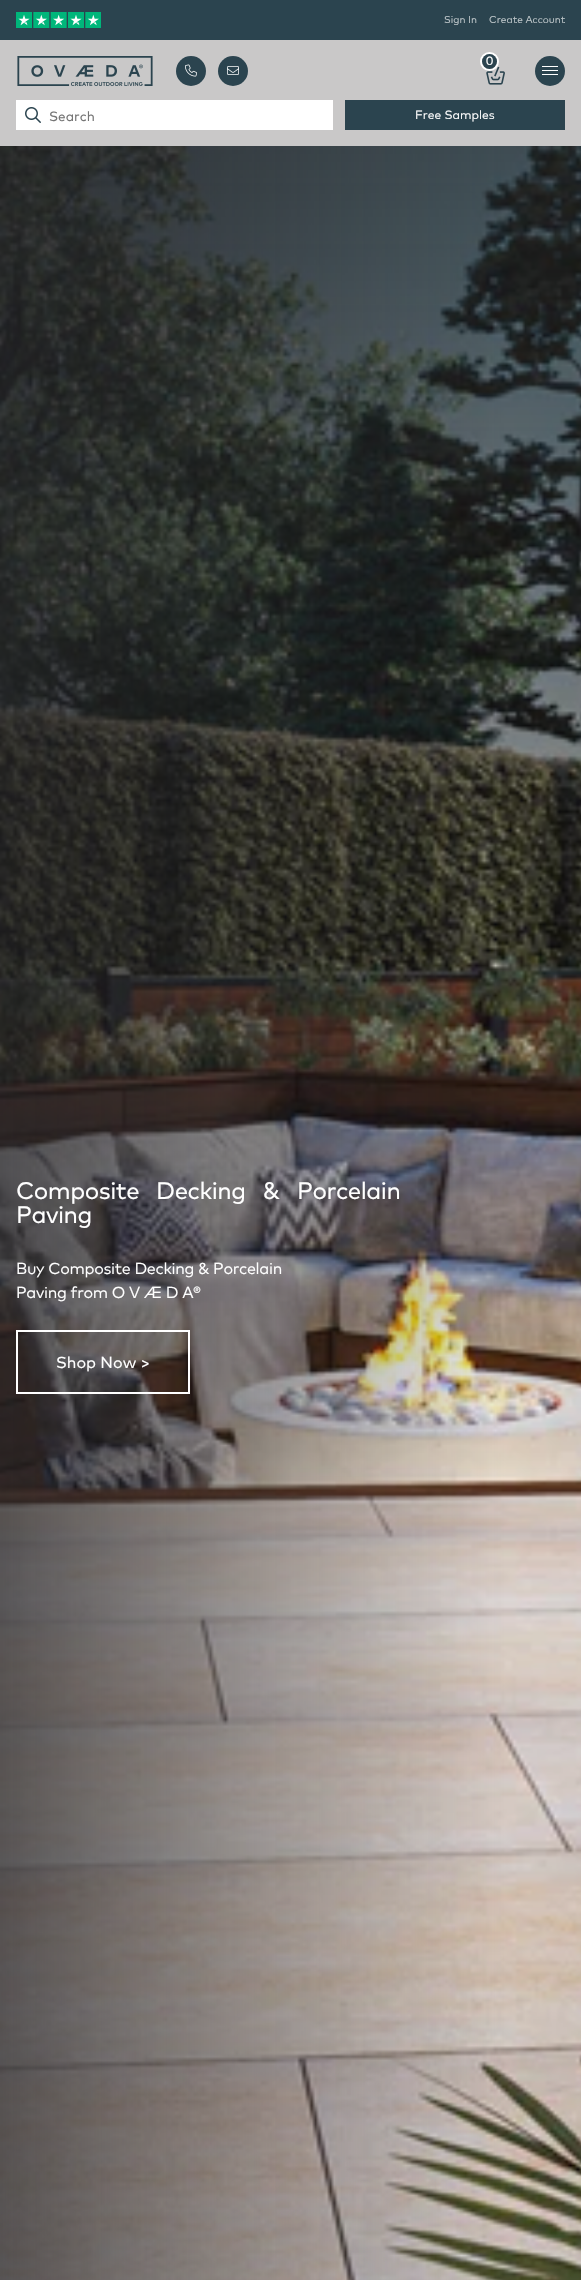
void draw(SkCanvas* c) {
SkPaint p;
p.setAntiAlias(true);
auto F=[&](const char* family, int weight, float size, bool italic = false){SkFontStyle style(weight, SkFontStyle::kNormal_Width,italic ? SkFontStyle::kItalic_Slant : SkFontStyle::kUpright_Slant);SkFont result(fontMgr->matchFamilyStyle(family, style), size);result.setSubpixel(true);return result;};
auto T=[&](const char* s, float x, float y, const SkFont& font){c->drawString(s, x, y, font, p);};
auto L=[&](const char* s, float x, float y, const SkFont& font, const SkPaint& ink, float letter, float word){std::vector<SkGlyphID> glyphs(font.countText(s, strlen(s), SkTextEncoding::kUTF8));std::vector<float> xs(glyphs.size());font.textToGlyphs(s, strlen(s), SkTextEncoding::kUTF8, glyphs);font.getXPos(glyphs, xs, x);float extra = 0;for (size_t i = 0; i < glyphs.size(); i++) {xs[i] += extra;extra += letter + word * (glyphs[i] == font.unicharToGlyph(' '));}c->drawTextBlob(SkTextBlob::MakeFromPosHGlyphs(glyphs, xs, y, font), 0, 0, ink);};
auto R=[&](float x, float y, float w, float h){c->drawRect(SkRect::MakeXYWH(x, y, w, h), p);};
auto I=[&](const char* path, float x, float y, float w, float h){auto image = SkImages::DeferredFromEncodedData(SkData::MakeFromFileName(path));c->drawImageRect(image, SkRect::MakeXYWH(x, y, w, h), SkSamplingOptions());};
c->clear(0xffc9c8c8);
p.setColor(0xff2b444f);
R(0,0,581,40);
I("1.png",16,12,85,16);
auto f1 = F("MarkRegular",400,10);
p.setColor(0xffbfc7ca);
T("Sign In",444,23,f1);
T("Create Account",489,23,f1);
I("2.png",17,56,136,30);
p.setColor(0xffffffff);
R(16,100,317,30);
I("3.png",25,107,16,16);
auto f2 = F("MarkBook",400,13.5);
p.setColor(0xff757575);
T("Search",49,121,f2);
p.setColor(0xff2b444f);
c->drawCircle(191,71,15,p);
I("4.png",185,64,12,13);
c->drawCircle(233,71,15,p);
I("5.png",227,66,12,9);
I("6.png",486,66,19,19);
p.setStroke(true);
p.setStrokeWidth(2);
p.setColor(0xffffffff);
c->drawCircle(489.5,61.5,8.5,p);
p.setStroke(false);
p.setColor(0xff2b444f);
c->drawCircle(489.5,61.5,7.5,p);
auto f3 = F("MarkBook",400,12);
p.setColor(0xffffffff);
T("0",486,65,f3);
p.setColor(0xff2b444f);
c->drawCircle(550,71,15,p);
p.setColor(0xffffffff);
R(542,70,16,1);
R(542,66,16,1);
R(542,74,16,1);
p.setColor(0xff2b444f);
R(345,100,220,30);
auto f4 = F("MarkRegular",400,12);
p.setColor(0xffffffff);
T("Free Samples",415,119,f4);
I("7.png",0,146,581,2134);
auto f5 = F("MarkBook",400,24);
L("Composite",16,1199,f5,p,-.5,0);
L("Decking",156,1199,f5,p,-.5,0);
L("&",263,1199,f5,p,-.5,0);
L("Porcelain",297,1199,f5,p,-.5,0);
L("Paving",16,1223,f5,p,-.5,0);
auto f6 = F("MarkRegular",400,16);
L("Buy Composite Decking & Porcelain",16,1274,f6,p,-.3,0);
L("Paving from O V Æ D A®",16,1298,f6,p,-.3,0);
p.setStroke(true);
c->drawRect(SkRect::MakeXYWH(17,1331,172,62),p);
auto f7 = F("MarkBook",400,16);
p.setStroke(false);
T("Shop Now >",56,1368,f7);
}
